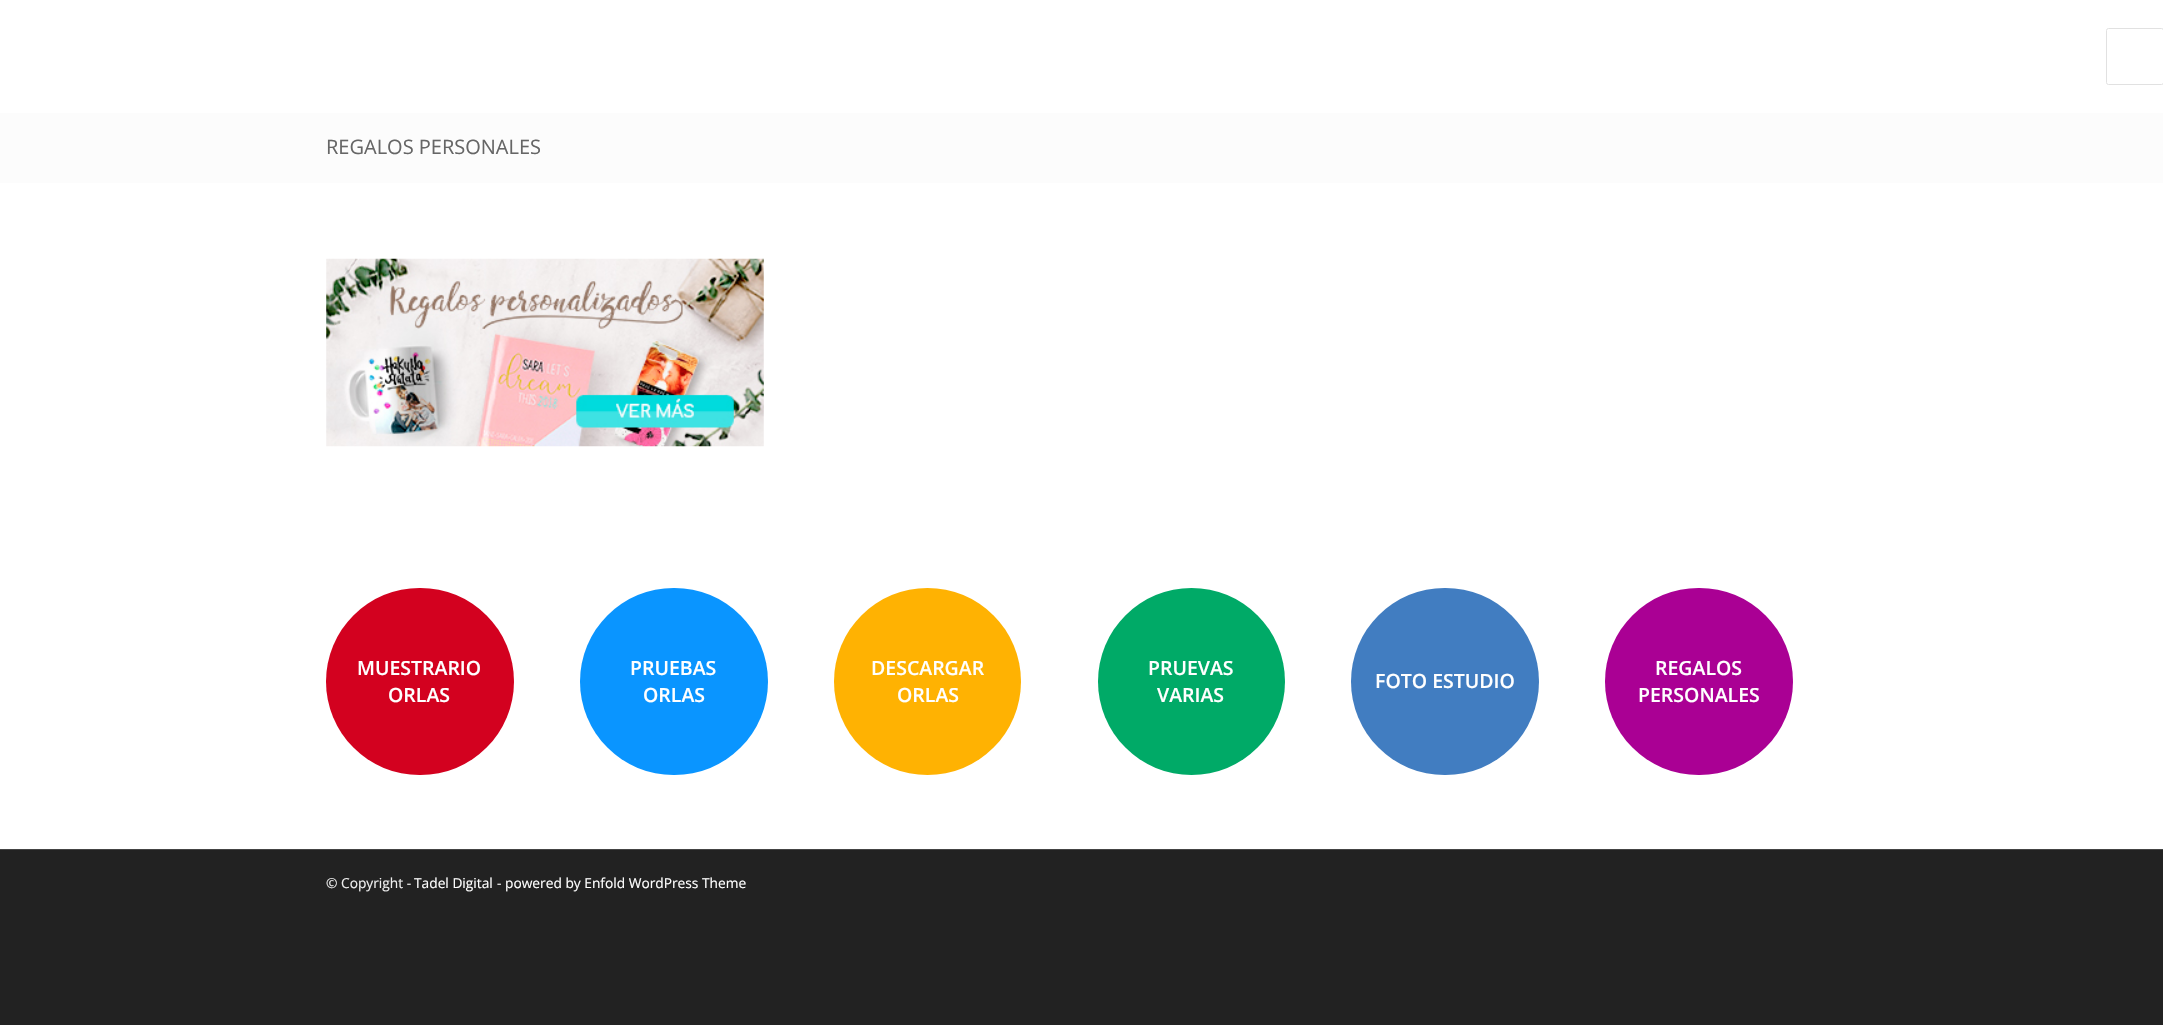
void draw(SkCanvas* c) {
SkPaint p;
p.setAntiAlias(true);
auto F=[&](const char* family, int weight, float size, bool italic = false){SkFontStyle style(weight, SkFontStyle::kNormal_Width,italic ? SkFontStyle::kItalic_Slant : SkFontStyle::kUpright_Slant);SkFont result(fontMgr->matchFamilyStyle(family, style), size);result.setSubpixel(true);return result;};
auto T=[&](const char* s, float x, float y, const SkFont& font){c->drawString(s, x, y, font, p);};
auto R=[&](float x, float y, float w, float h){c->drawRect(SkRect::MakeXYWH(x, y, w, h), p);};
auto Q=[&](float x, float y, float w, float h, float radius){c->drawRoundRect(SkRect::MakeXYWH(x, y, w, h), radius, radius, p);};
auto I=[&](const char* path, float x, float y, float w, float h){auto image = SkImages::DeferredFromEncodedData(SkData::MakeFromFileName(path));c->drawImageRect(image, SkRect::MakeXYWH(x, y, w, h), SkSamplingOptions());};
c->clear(0xff222222);
p.setColor(0xffffffff);
R(0,0,2163,113);
p.setStroke(true);
p.setStrokeWidth(1);
p.setColor(0xffe1e1e1);
c->drawRoundRect(SkRect::MakeXYWH(2106.5,28.5,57,56),2,2,p);
p.setStroke(false);
p.setColor(0xffffffff);
R(0,183,2163,666);
p.setColor(0xfffcfcfc);
R(0,113,2163,70);
auto f1 = F("Open Sans",400,20);
p.setColor(0xff666666);
T("REGALOS PERSONALES",326,154,f1);
I("1.png",326,258,438,189);
p.setColor(0xffd3011f);
Q(326,588,188,187,93.5);
auto f2 = F("Open Sans",600,19.5);
p.setColor(0xffffffff);
T("MUESTRARIO",357,675,f2);
T("ORLAS",388,702,f2);
p.setColor(0xff0a95ff);
Q(580,588,188,187,93.5);
p.setColor(0xffffffff);
T("PRUEBAS",630,675,f2);
T("ORLAS",643,702,f2);
p.setColor(0xffffb202);
c->drawCircle(927.5,681.5,93.5,p);
p.setColor(0xffffffff);
T("DESCARGAR",871,675,f2);
T("ORLAS",897,702,f2);
p.setColor(0xff00aa67);
c->drawCircle(1191.5,681.5,93.5,p);
p.setColor(0xffffffff);
T("PRUEVAS",1148,675,f2);
T("VARIAS",1157,702,f2);
p.setColor(0xff417dc1);
Q(1351,588,188,187,93.5);
p.setColor(0xffffffff);
T("FOTO ESTUDIO",1375,688,f2);
p.setColor(0xffaa0094);
Q(1605,588,188,187,93.5);
p.setColor(0xffffffff);
T("REGALOS",1655,675,f2);
T("PERSONALES",1638,702,f2);
p.setColor(0xff444444);
R(0,849,2163,1);
auto f3 = F("Open Sans",400,13.75);
p.setColor(0xffeeeeee);
T("© Copyright -",326,888,f3);
p.setColor(0xffffffff);
T("Tadel Digital",414,888,f3);
p.setColor(0xffeeeeee);
T("-",497,888,f3);
p.setColor(0xffffffff);
T("powered by Enfold WordPress Theme",505,888,f3);
}
